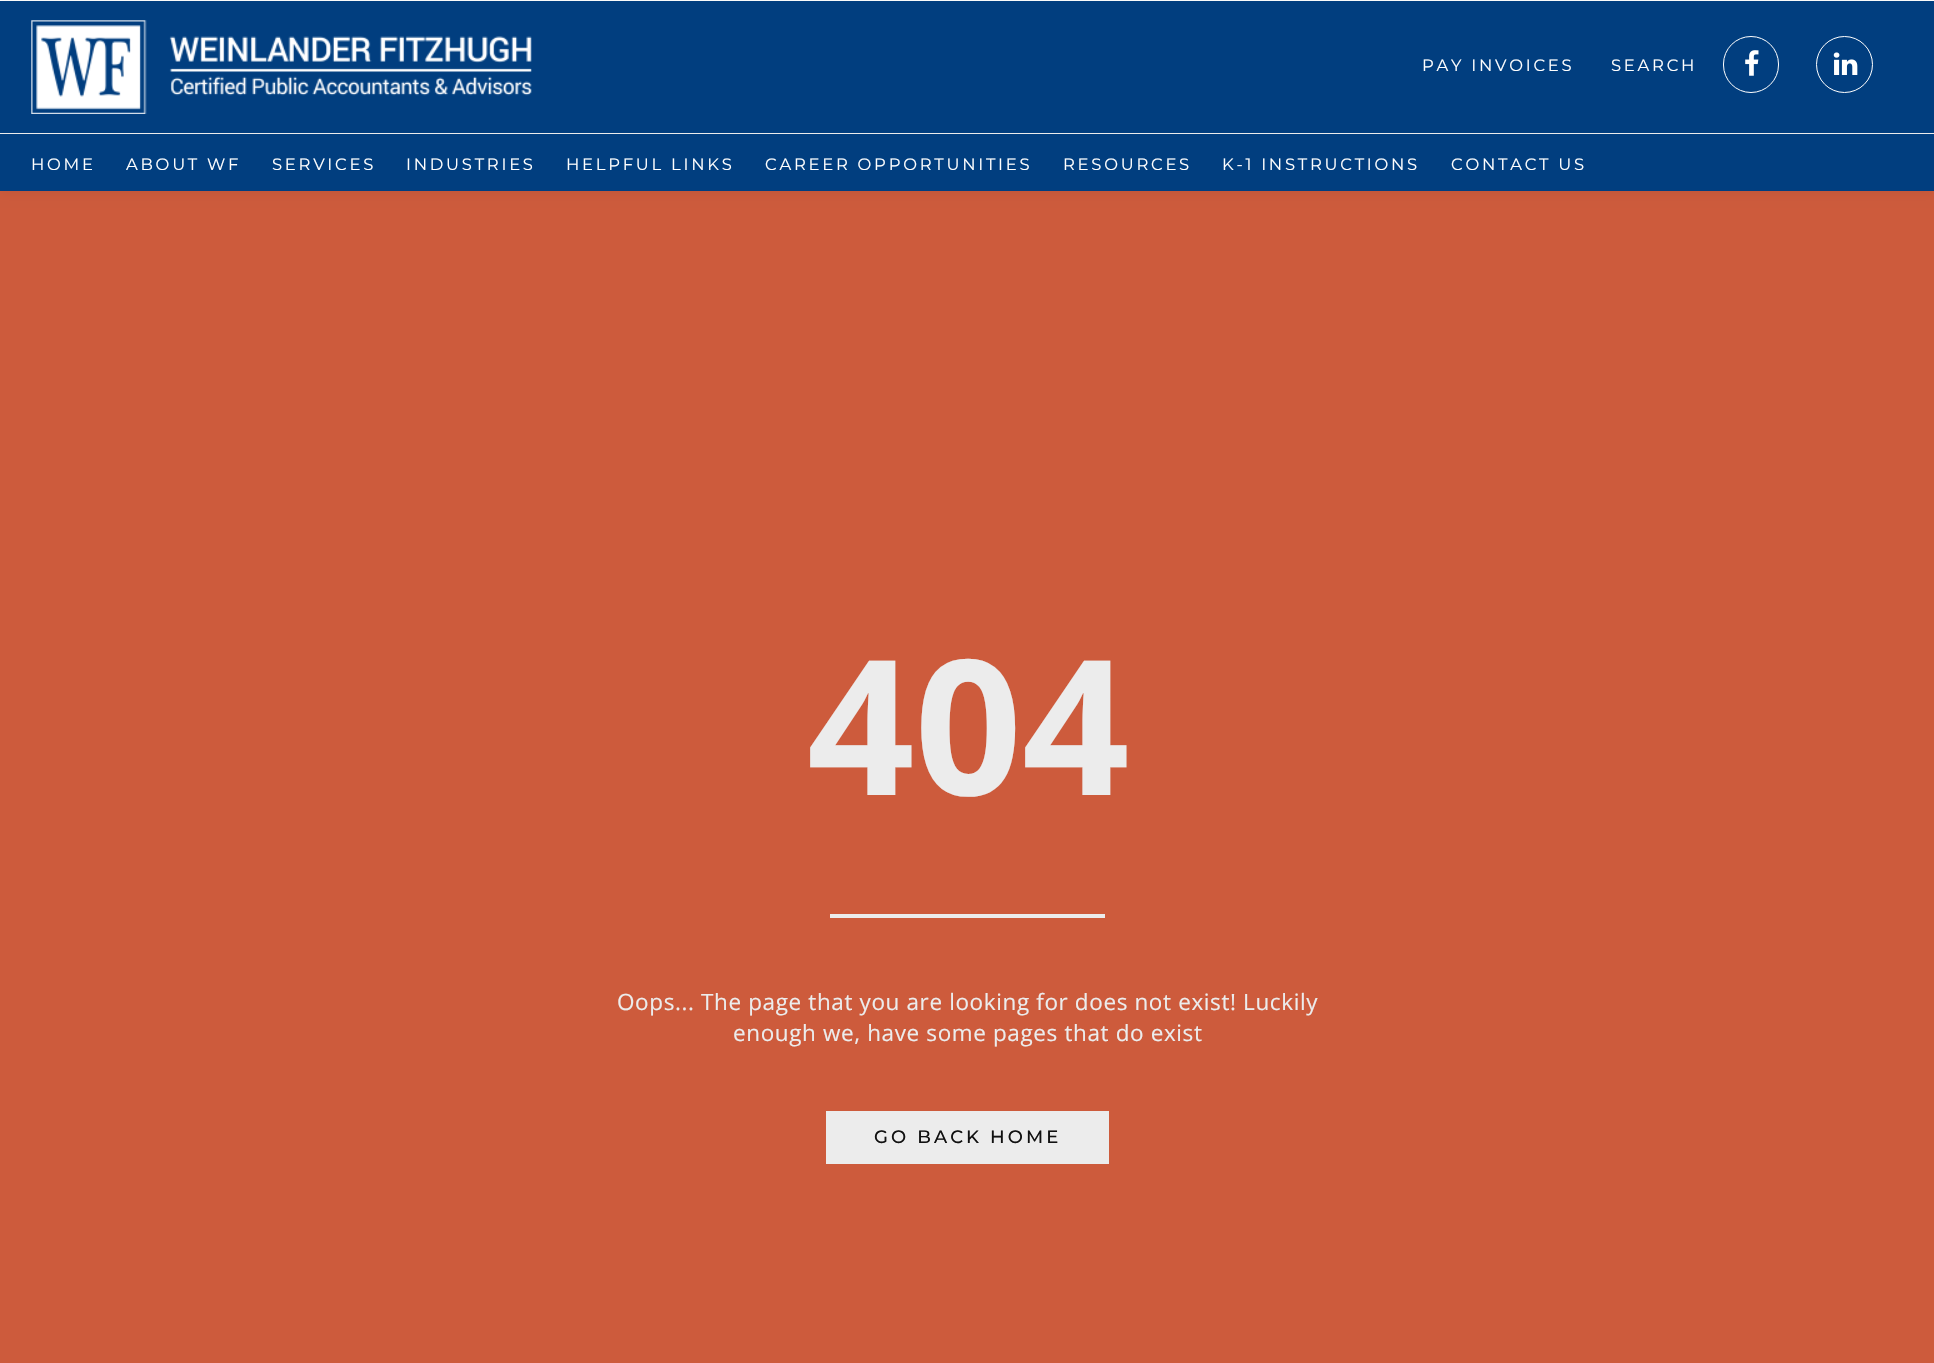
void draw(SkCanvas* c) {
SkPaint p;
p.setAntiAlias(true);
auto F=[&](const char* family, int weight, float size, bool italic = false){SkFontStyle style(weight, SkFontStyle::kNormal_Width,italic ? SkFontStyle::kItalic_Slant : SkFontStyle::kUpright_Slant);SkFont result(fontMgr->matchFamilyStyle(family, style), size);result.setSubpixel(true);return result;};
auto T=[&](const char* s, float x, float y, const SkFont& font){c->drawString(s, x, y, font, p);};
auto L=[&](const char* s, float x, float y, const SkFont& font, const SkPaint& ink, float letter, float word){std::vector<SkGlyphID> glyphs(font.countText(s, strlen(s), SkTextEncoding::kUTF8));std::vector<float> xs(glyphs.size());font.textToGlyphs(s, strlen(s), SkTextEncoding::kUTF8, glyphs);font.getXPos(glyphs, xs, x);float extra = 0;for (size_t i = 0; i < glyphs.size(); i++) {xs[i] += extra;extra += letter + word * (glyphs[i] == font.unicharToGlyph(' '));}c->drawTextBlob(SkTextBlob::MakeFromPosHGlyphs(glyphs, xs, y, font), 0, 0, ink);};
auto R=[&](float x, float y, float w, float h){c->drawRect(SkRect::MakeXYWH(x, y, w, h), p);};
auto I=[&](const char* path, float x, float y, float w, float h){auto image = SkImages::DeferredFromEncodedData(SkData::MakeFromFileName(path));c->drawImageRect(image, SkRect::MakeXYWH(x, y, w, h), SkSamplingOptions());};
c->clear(0xffffffff);
p.setColor(0xffcd5b3c);
R(0,191,1934,1172);
p.setColor(0x0f000000);
p.setMaskFilter(SkMaskFilter::MakeBlur(kNormal_SkBlurStyle, 5));
c->drawRect(SkRect::MakeXYWH(0,3,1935,190),p);
p.setMaskFilter(nullptr);
p.setColor(0xff013e7f);
R(0,1,1934,190);
I("1.png",31,20,501,94);
auto f1 = F("Montserrat",400,16.4);
p.setColor(0xffffffff);
L("PAY INVOICES",1422,71,f1,p,2.75,0);
L("SEARCH",1611,71,f1,p,2.75,0);
p.setStroke(true);
p.setStrokeWidth(1);
c->drawRoundRect(SkRect::MakeXYWH(1723.5,36.5,55,56),27.5,27.5,p);
I("2.png",1745,50,14,26);
c->drawCircle(1844.5,64.5,28,p);
I("3.png",1833,52,25,23);
p.setStroke(false);
p.setColor(0xffececec);
R(0,133,1934,1);
p.setColor(0xffffffff);
L("HOME",31,170,f1,p,2.75,0);
L("ABOUT WF",126,170,f1,p,2.75,0);
L("SERVICES",272,170,f1,p,2.75,0);
L("INDUSTRIES",406,170,f1,p,2.75,0);
L("HELPFUL LINKS",566,170,f1,p,2.75,0);
L("CAREER OPPORTUNITIES",765,170,f1,p,2.75,0);
L("RESOURCES",1063,170,f1,p,2.75,0);
L("K-1 INSTRUCTIONS",1222,170,f1,p,2.75,0);
L("CONTACT US",1451,170,f1,p,2.75,0);
auto f2 = F("Open Sans",700,188);
p.setColor(0xffececec);
T("404",807,795,f2);
R(830,914,275,4);
auto f3 = F("Open Sans",400,22.5);
L("Oops... The page that you are looking for does not exist! Luckily",617,1010,f3,p,.62,0);
L("enough we, have some pages that do exist",733,1041,f3,p,.62,0);
R(826,1111,283,53);
auto f4 = F("Montserrat",500,18);
p.setColor(0xff111111);
L("GO BACK HOME",874,1143,f4,p,3.1,0);
}
